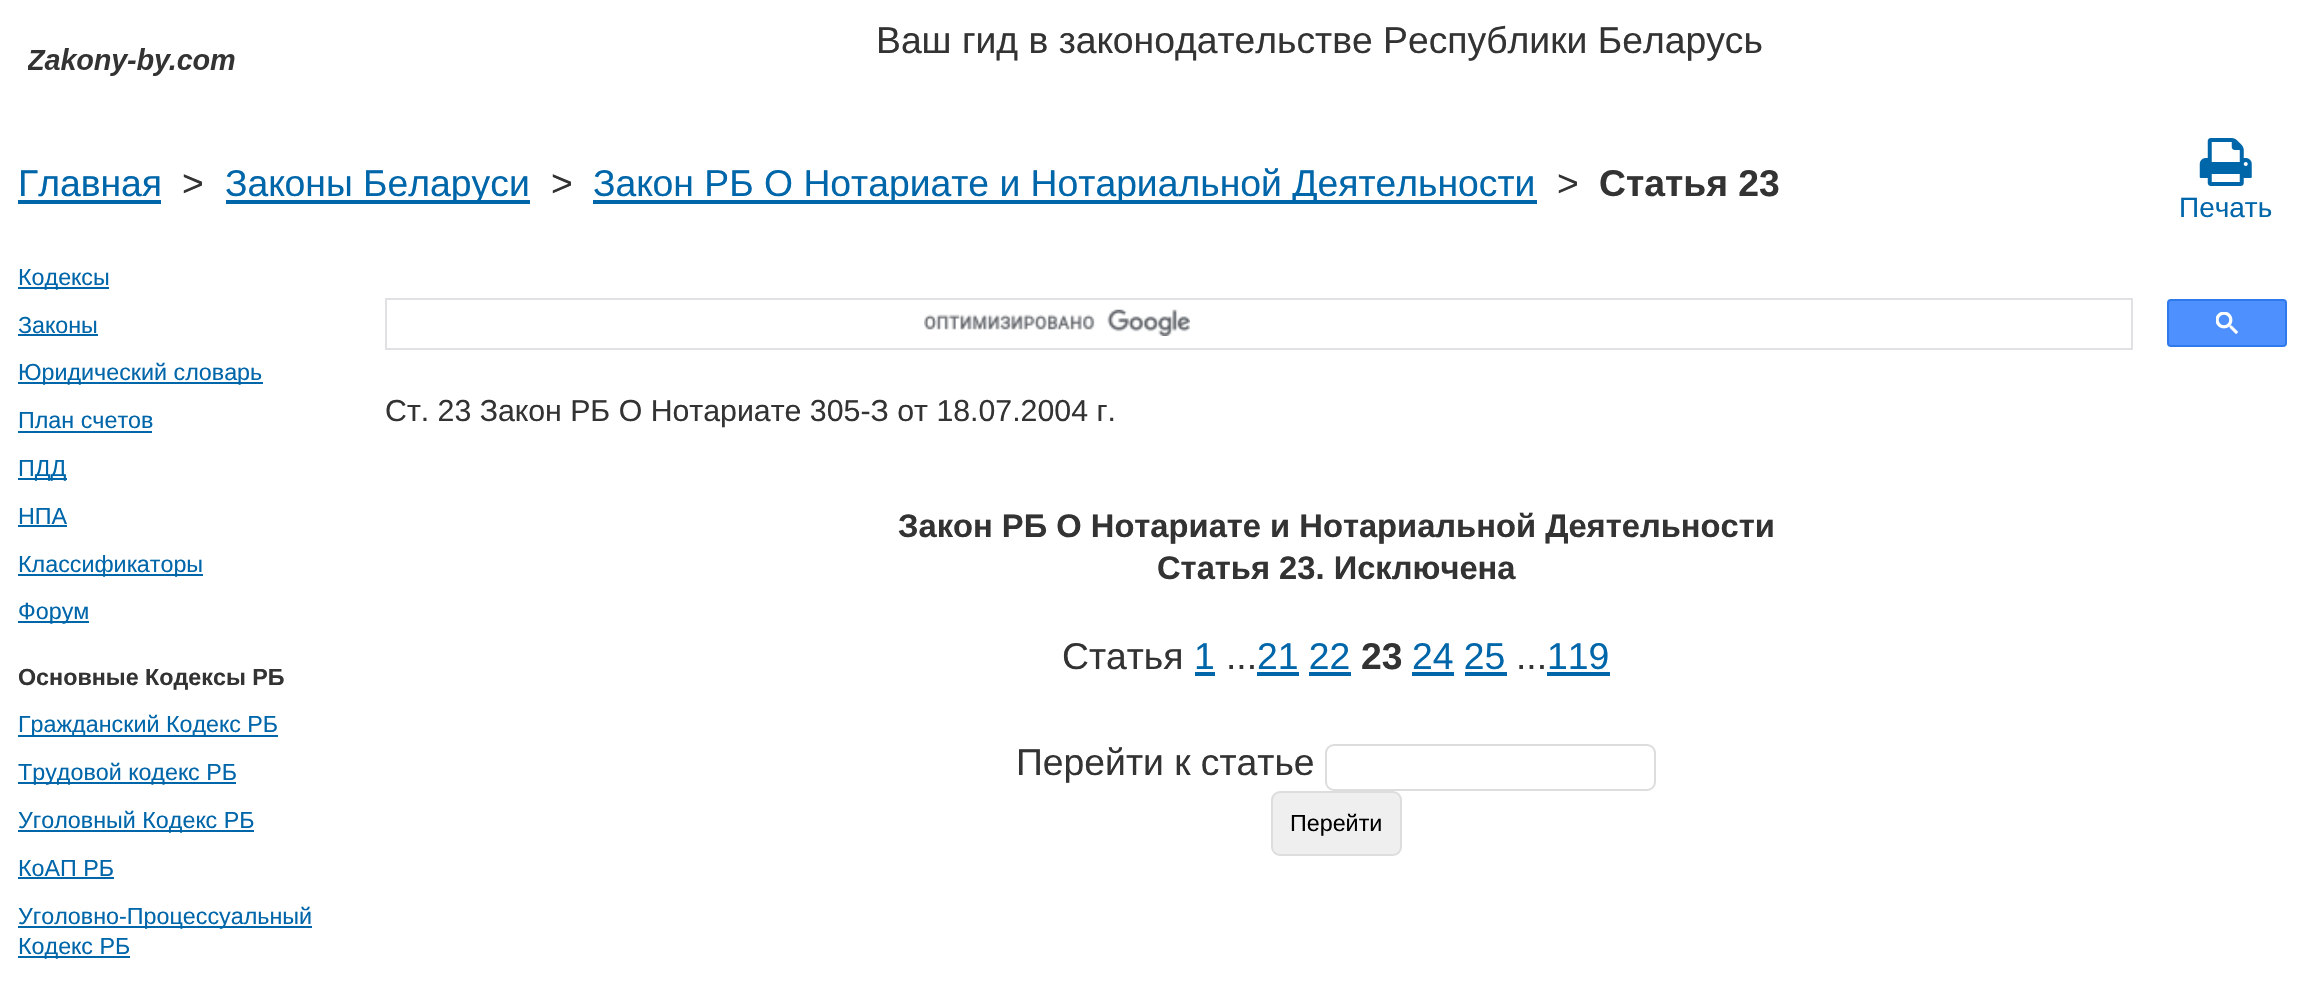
void draw(SkCanvas* c) {
SkPaint p;
p.setAntiAlias(true);
auto F=[&](const char* family, int weight, float size, bool italic = false){SkFontStyle style(weight, SkFontStyle::kNormal_Width,italic ? SkFontStyle::kItalic_Slant : SkFontStyle::kUpright_Slant);SkFont result(fontMgr->matchFamilyStyle(family, style), size);result.setSubpixel(true);return result;};
auto T=[&](const char* s, float x, float y, const SkFont& font){c->drawString(s, x, y, font, p);};
auto R=[&](float x, float y, float w, float h){c->drawRect(SkRect::MakeXYWH(x, y, w, h), p);};
auto I=[&](const char* path, float x, float y, float w, float h){auto image = SkImages::DeferredFromEncodedData(SkData::MakeFromFileName(path));c->drawImageRect(image, SkRect::MakeXYWH(x, y, w, h), SkSamplingOptions());};
c->clear(0xffffffff);
I("1.png",28,48,207,28);
auto f1 = F("Liberation Sans",400,37.3);
p.setColor(0xff333333);
T("Ваш гид в законодательстве Республики Беларусь",876,53,f1);
p.setColor(0xff0066aa);
T("Главная",18,196,f1);
R(18,200,143,4);
p.setColor(0xff333333);
T(">",182,196,f1);
p.setColor(0xff0066aa);
R(226,200,304,4);
T("Законы Беларуси",225,196,f1);
p.setColor(0xff333333);
T(">",551,196,f1);
p.setColor(0xff0066aa);
R(593,200,944,4);
T("Закон РБ О Нотариате и Нотариальной Деятельности",593,196,f1);
p.setColor(0xff333333);
T(">",1557,196,f1);
auto f2 = F("Liberation Sans",700,37.3);
T("Статья 23",1599,196,f2);
I("2.png",2199,138,53,48);
auto f3 = F("Liberation Sans",400,28);
p.setColor(0xff0066aa);
T("Печать",2179,217,f3);
R(18,287,91,2);
auto f4 = F("Liberation Sans",400,23.3);
T("Кодексы",18,285,f4);
T("Законы",18,333,f4);
R(18,334,80,2);
R(18,382,245,2);
T("Юридический словарь",18,380,f4);
T("План счетов",18,428,f4);
R(18,431,134,2);
R(18,478,49,2);
T("ПДД",18,476,f4);
T("НПА",18,524,f4);
R(18,525,49,2);
R(18,574,185,2);
T("Классификаторы",18,572,f4);
R(18,621,71,2);
T("Форум",18,619,f4);
auto f5 = F("Liberation Sans",700,23.3);
p.setColor(0xff333333);
T("Основные Кодексы РБ",18,685,f5);
p.setColor(0xff0066aa);
R(18,735,260,2);
T("Гражданский Кодекс РБ",18,732,f4);
R(18,782,218,2);
T("Трудовой кодекс РБ",18,780,f4);
R(18,830,236,2);
T("Уголовный Кодекс РБ",18,828,f4);
T("КоАП РБ",18,876,f4);
R(18,877,96,2);
R(18,926,294,2);
T("Уголовно-Процессуальный",18,924,f4);
R(18,956,112,2);
T("Кодекс РБ",18,954,f4);
p.setStroke(true);
p.setStrokeWidth(2);
p.setColor(0xffdfe1e5);
c->drawRect(SkRect::MakeXYWH(386,299,1746,50),p);
I("3.png",924,309,266,27);
p.setStroke(false);
p.setColor(0xff4d90fe);
c->drawRoundRect(SkRect::MakeXYWH(2168,300,118,46),3,3,p);
p.setStroke(true);
p.setColor(0xff3079ed);
c->drawRoundRect(SkRect::MakeXYWH(2168,300,118,46),3,3,p);
I("4.png",2216,312,22,22);
auto f6 = F("Liberation Sans",400,30.3);
p.setStroke(false);
p.setColor(0xff333333);
T("Ст. 23 Закон РБ О Нотариате 305-З от 18.07.2004 г.",385,421,f6);
auto f7 = F("Liberation Sans",700,32.7);
T("Закон РБ О Нотариате и Нотариальной Деятельности",898,537,f7);
T("Статья 23. Исключена",1157,579,f7);
T("Статья",1062,669,f1);
p.setColor(0xff0066aa);
T("1",1194,669,f1);
R(1195,672,20,4);
p.setColor(0xff333333);
T("...",1226,669,f1);
p.setColor(0xff0066aa);
T("21 22",1257,669,f1);
R(1257,672,42,4);
p.setColor(0xff333333);
T("23",1361,669,f2);
p.setColor(0xff0066aa);
T("24 25",1412,669,f1);
R(1412,672,42,4);
p.setColor(0xff333333);
T("...",1516,669,f1);
p.setColor(0xff0066aa);
T("119",1547,669,f1);
R(1547,672,63,4);
R(1309,672,42,4);
R(1465,672,42,4);
p.setColor(0xff333333);
T("Перейти к статье",1016,775,f1);
p.setStroke(true);
p.setColor(0xffdddddd);
c->drawRoundRect(SkRect::MakeXYWH(1326,745,329,45),8,8,p);
p.setStroke(false);
p.setColor(0xffefefef);
c->drawRoundRect(SkRect::MakeXYWH(1272,792,129,63),8,8,p);
p.setStroke(true);
p.setColor(0xffdddddd);
c->drawRoundRect(SkRect::MakeXYWH(1272,792,129,63),8,8,p);
p.setStroke(false);
p.setColor(0xff000000);
T("Перейти",1290,831,f4);
}
